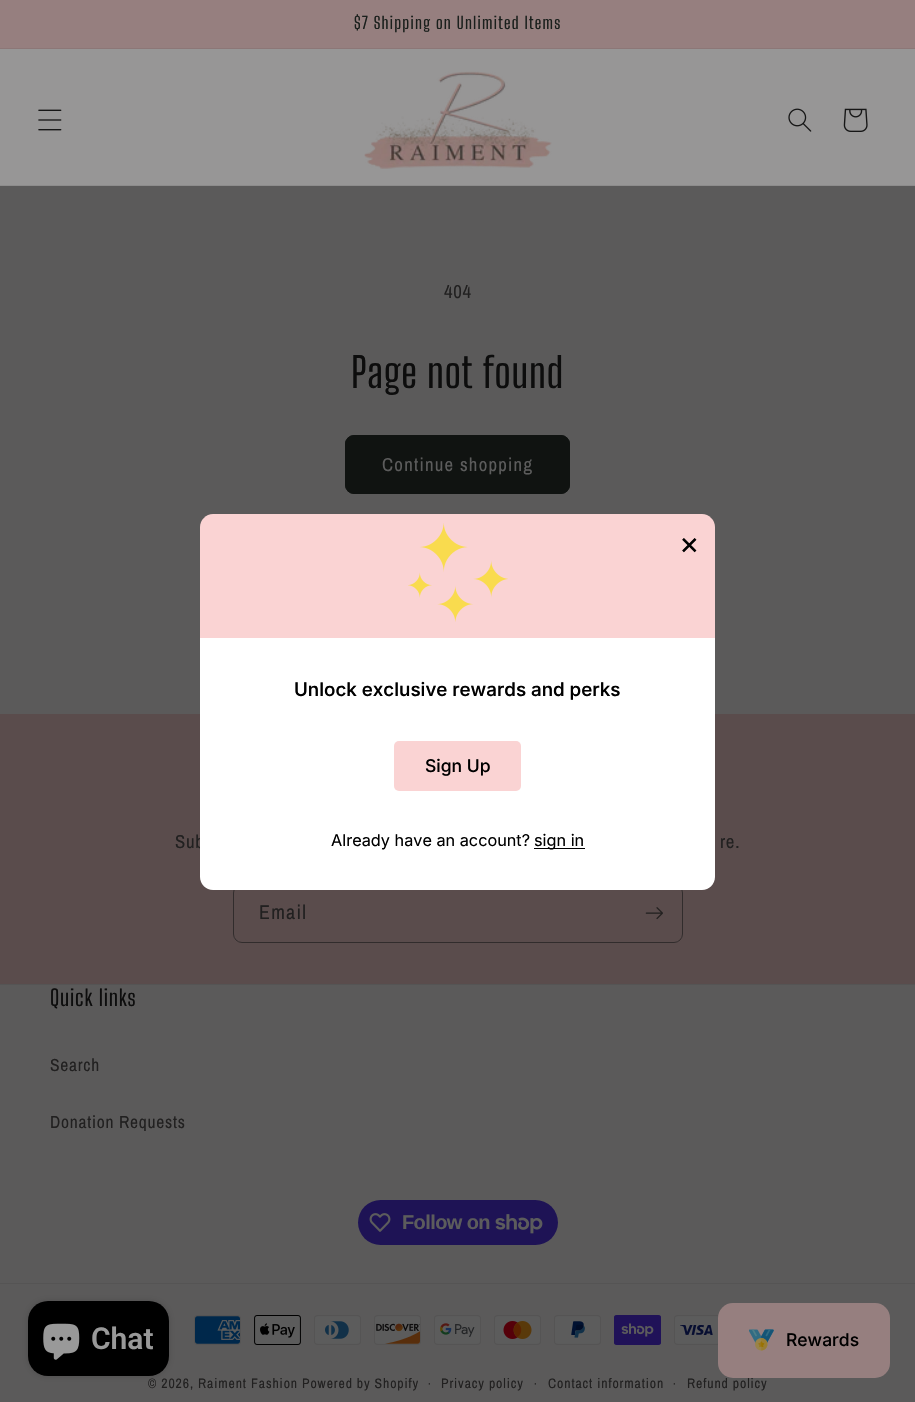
void draw(SkCanvas* c) {
SkPaint p;
p.setAntiAlias(true);
auto F=[&](const char* family, int weight, float size, bool italic = false){SkFontStyle style(weight, SkFontStyle::kNormal_Width,italic ? SkFontStyle::kItalic_Slant : SkFontStyle::kUpright_Slant);SkFont result(fontMgr->matchFamilyStyle(family, style), size);result.setSubpixel(true);return result;};
auto T=[&](const char* s, float x, float y, const SkFont& font){c->drawString(s, x, y, font, p);};
auto L=[&](const char* s, float x, float y, const SkFont& font, const SkPaint& ink, float letter, float word){std::vector<SkGlyphID> glyphs(font.countText(s, strlen(s), SkTextEncoding::kUTF8));std::vector<float> xs(glyphs.size());font.textToGlyphs(s, strlen(s), SkTextEncoding::kUTF8, glyphs);font.getXPos(glyphs, xs, x);float extra = 0;for (size_t i = 0; i < glyphs.size(); i++) {xs[i] += extra;extra += letter + word * (glyphs[i] == font.unicharToGlyph(' '));}c->drawTextBlob(SkTextBlob::MakeFromPosHGlyphs(glyphs, xs, y, font), 0, 0, ink);};
auto R=[&](float x, float y, float w, float h){c->drawRect(SkRect::MakeXYWH(x, y, w, h), p);};
auto Q=[&](float x, float y, float w, float h, float radius){c->drawRoundRect(SkRect::MakeXYWH(x, y, w, h), radius, radius, p);};
auto I=[&](const char* path, float x, float y, float w, float h){auto image = SkImages::DeferredFromEncodedData(SkData::MakeFromFileName(path));c->drawImageRect(image, SkRect::MakeXYWH(x, y, w, h), SkSamplingOptions());};
auto P=[&](const char* data, bool evenOdd = false){SkPath result = *SkParsePath::FromSVGString(data);if (evenOdd) result.setFillType(SkPathFillType::kEvenOdd);return result;};
c->clear(0xff5b5a5a);
p.setColor(0xff967f7f);
R(0,0,915,48);
p.setColor(0xff8c7777);
R(0,48,915,1);
auto f1 = F("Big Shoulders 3",400,16.5);
p.setColor(0xff1a1f1c);
L("$7 Shipping on Unlimited Items",354,29,f1,p,1.25,0);
p.setColor(0xff979696);
R(0,49,915,136);
p.setColor(0xff8d8c8c);
R(0,185,915,1);
I("1.png",38,109,24,22);
I("2.png",364,71,188,98);
I("3.png",788,108,24,24);
I("4.png",843,108,25,24);
auto f2 = F("Archivo Narrow",400,18.75);
p.setColor(0xff212020);
L("404",444,298,f2,p,.75,0);
auto f3 = F("Big Shoulders",400,41.25);
p.setColor(0xff0d0d0d);
L("Page not found",351,388,f3,p,.8,0);
p.setColor(0xff101311);
Q(345,435,225,59,9);
p.setStroke(true);
p.setStrokeWidth(1);
c->drawRoundRect(SkRect::MakeXYWH(345.5,435.5,224,58),8.5,8.5,p);
p.setStroke(false);
p.setColor(0xff5c5c5c);
L("Continue shopping",382,471,f2,p,1.25,0);
p.setColor(0xfffad3d3);
c->drawPath(P("M213 514h489c7 0 13 6 13 13v111h-515v-111c0-7 6-13 13-13z"),p);
I("5.png",408,523,100,99);
p.setColor(0xff5a4c4c);
R(0,714,915,270);
p.setColor(0xff212020);
L("Sub",175,848,f2,p,.75,0);
p.setStroke(true);
p.setColor(0xff312c2c);
c->drawRoundRect(SkRect::MakeXYWH(233.5,884.5,449,58),8.5,8.5,p);
p.setStroke(false);
p.setColor(0xffffffff);
c->drawPath(P("M200 638h515v239c0 7-6 13-13 13h-489c-7 0-13-6-13-13z"),p);
auto f4 = F("Inter",400,31);
p.setColor(0xff000000);
T("×",679,554,f4);
auto f5 = F("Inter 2",500,18.75);
T("Unlock exclusive rewards and perks",294,696,f5);
p.setColor(0xfffad3d3);
Q(394,741,127,50,5);
auto f6 = F("Inter",500,17.5);
p.setColor(0xff000000);
T("Sign Up",425,772,f6);
auto f7 = F("Inter",400,16.25);
T("Already have an account?",331,846,f7);
R(534,848,51,1);
T("sign in",534,846,f7);
I("18.png",674,1315,45,30);
auto f8 = F("Archivo Narrow",400,13.75);
p.setColor(0xff212020);
L("Refund policy",687,1388,f8,p,.9,0);
p.setColor(0xff967f7f);
Q(718,1303,172,75,15);
I("6.png",749,1329,25,22);
p.setColor(0xff000000);
T("Rewards",786,1346,f6);
p.setColor(0xff212020);
L("re.",720,848,f2,p,.75,0);
auto f9 = F("Archivo Narrow",400,20);
L("Email",259,919,f9,p,1.25,0);
I("7.png",645,907,18,13);
p.setColor(0xff555454);
R(0,984,915,1);
auto f10 = F("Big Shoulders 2",400,22);
p.setColor(0xff0d0d0d);
L("Quick links",50,1006,f10,p,.8,0);
auto f11 = F("Archivo Narrow",400,17.5);
p.setColor(0xff212020);
L("Search",50,1071,f11,p,.75,0);
L("Donation Requests",50,1128,f11,p,.75,0);
p.setColor(0xff1e1355);
Q(358,1200,200,45,22.5);
I("8.png",369,1213,22,19);
auto f12 = F("Liberation Sans",700,20);
p.setColor(0xff5c5c5c);
L("Follow on",402,1229,f12,p,-.6,0);
I("9.png",495,1214,48,20);
p.setColor(0xff555454);
R(0,1283,915,1);
I("10.png",194,1315,47,30);
I("11.png",254,1315,47,30);
I("12.png",314,1315,47,30);
I("13.png",374,1315,47,30);
I("14.png",434,1315,47,30);
I("15.png",494,1315,47,30);
I("16.png",554,1315,47,30);
I("17.png",614,1315,47,30);
p.setColor(0xff212020);
L("© 2026, Raiment Fashion Powered by Shopify",148,1388,f8,p,.9,0);
auto f13 = F("Archivo Narrow",400,12);
L("·",428,1388,f13,p,.9,0);
L("Privacy policy",441,1388,f8,p,.9,0);
L("·",534,1388,f13,p,.9,0);
L("Contact information",548,1388,f8,p,.9,0);
L("·",673,1388,f13,p,.9,0);
p.setColor(0x26000000);
p.setMaskFilter(SkMaskFilter::MakeBlur(kNormal_SkBlurStyle, 3));
c->drawRoundRect(SkRect::MakeXYWH(28,1301,141,75),20,20,p);
p.setMaskFilter(nullptr);
p.setColor(0xff000000);
Q(28,1301,141,75,20);
I("19.png",43,1323,37,37);
auto f14 = F("Roboto",600,30);
p.setColor(0xff999999);
T("Chat",91,1349,f14);
}
